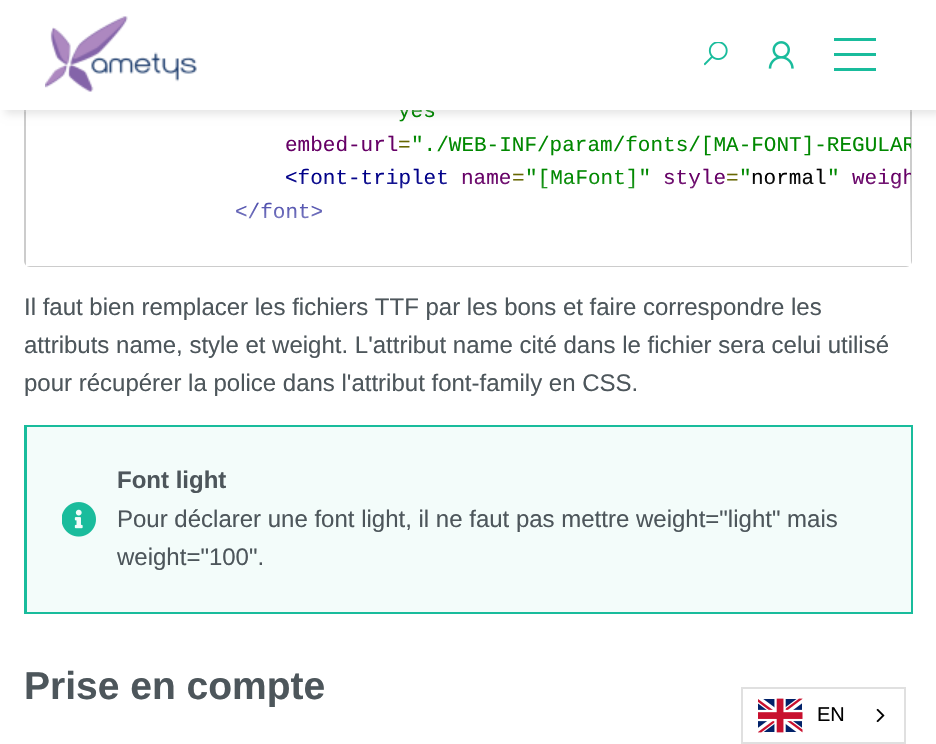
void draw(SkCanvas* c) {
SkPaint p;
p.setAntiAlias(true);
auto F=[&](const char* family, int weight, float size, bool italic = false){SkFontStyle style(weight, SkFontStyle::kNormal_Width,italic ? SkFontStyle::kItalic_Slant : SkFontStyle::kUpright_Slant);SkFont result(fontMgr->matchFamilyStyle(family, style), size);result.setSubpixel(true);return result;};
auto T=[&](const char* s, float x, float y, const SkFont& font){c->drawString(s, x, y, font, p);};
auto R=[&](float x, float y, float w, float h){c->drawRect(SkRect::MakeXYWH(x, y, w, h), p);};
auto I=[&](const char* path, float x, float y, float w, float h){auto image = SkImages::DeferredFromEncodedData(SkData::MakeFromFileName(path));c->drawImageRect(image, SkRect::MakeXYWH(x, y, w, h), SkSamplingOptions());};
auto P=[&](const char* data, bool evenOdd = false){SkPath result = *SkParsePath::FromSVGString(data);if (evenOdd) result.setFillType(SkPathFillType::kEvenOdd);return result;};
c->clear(0xffffffff);
p.setStroke(true);
p.setStrokeWidth(2);
p.setColor(0xffcccccc);
c->drawRoundRect(SkRect::MakeXYWH(25,-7,886,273),5,5,p);
auto f1 = F("Liberation Mono",400,21);
p.setStroke(false);
p.setColor(0xff008800);
T("yes",398,117,f1);
p.setColor(0x33ffffff);
R(24,110,888,2);
p.setColor(0x1a000000);
p.setMaskFilter(SkMaskFilter::MakeBlur(kNormal_SkBlurStyle, 4));
c->drawRect(SkRect::MakeXYWH(5,5,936,109),p);
p.setMaskFilter(nullptr);
p.setColor(0xffffffff);
R(0,0,936,110);
I("1.png",45,16,152,76);
I("2.png",704,42,24,24);
I("3.png",768,41,26,28);
p.setColor(0xff19bc9c);
R(834,38,42,3);
R(834,53,42,3);
R(834,68,42,3);
p.setColor(0xff660066);
T("embed-url",285,151,f1);
p.setColor(0xff666600);
T("=",398,151,f1);
c->save();
c->clipPath(P("M31-114h875c3 0 5 2 5 5v370c0 3-2 5-5 5h-875c-3 0-5-2-5-5v-370c0-3 2-5 5-5z"),true);
p.setColor(0xff008800);
T("\"./WEB-INF/param/fonts/[MA-FONT]-REGULAR",411,151,f1);
c->restore();
p.setColor(0xff000088);
T("<font-triplet",285,184,f1);
p.setColor(0xff660066);
T("name",461,184,f1);
p.setColor(0xff666600);
T("=",512,184,f1);
p.setColor(0xff008800);
T("\"[MaFont]\"",525,184,f1);
p.setColor(0xff660066);
T("style",663,184,f1);
p.setColor(0xff666600);
T("=",726,184,f1);
p.setColor(0xff008800);
T("\"",739,184,f1);
p.setColor(0xff000000);
T("normal",751,184,f1);
p.setColor(0xff008800);
T("\"",827,184,f1);
c->save();
c->clipPath(P("M31-114h875c3 0 5 2 5 5v370c0 3-2 5-5 5h-875c-3 0-5-2-5-5v-370c0-3 2-5 5-5z"),true);
p.setColor(0xff660066);
T("weigh",852,184,f1);
c->restore();
p.setColor(0xff000088);
T("</font>",235,218,f1);
{
const SkColor colors[] = {0xffffffff,0x00ffffff};
const float stops[] = {0,1};
const SkPoint ends[] = {{468,266}, {468,176}};
p.setShader(SkGradientShader::MakeLinear(ends, colors, stops, 2, SkTileMode::kClamp));
p.setAlpha(255);
}
R(26,178,885,88);
auto f2 = F("Liberation Sans",400,24);
p.setShader(nullptr);
p.setColor(0xff4d565b);
T("Il faut bien remplacer les fichiers TTF par les bons et faire correspondre les",24,315,f2);
T("attributs name, style et weight. L'attribut name cité dans le fichier sera celui utilisé",24,353,f2);
T("pour récupérer la police dans l'attribut font-family en CSS.",24,391,f2);
p.setColor(0xfff3fcfa);
R(27,427,884,185);
I("4.png",62,502,34,35);
p.setColor(0xff19bc9c);
R(24,425,888,2);
R(911,425,2,189);
R(24,612,888,2);
R(24,425,3,189);
auto f3 = F("Liberation Sans",700,24);
p.setColor(0xff4d565b);
T("Font light",117,488,f3);
T("Pour déclarer une font light, il ne faut pas mettre weight=\"light\" mais",117,527,f2);
T("weight=\"100\".",117,565,f2);
auto f4 = F("Liberation Sans",700,39);
T("Prise en compte",24,699,f4);
p.setStroke(true);
p.setColor(0xffe0e0e0);
c->drawRect(SkRect::MakeXYWH(742,688,163,55),p);
I("5.png",758,698,45,35);
auto f5 = F("Liberation Sans",400,20);
p.setStroke(false);
p.setColor(0xff000000);
T("EN",817,721,f5);
I("6.png",876,708,9,15);
}
